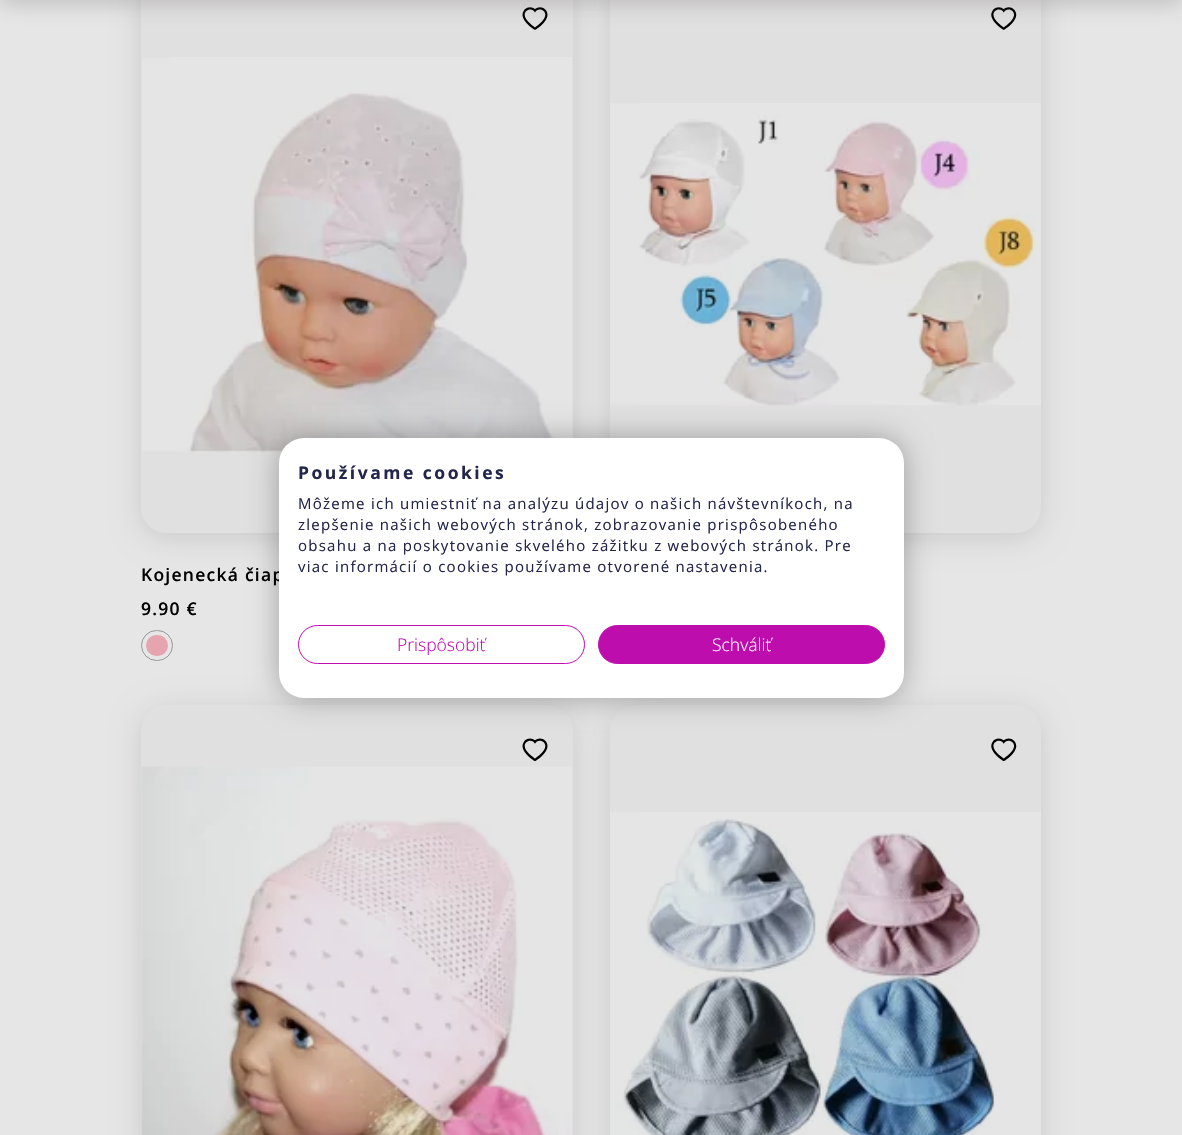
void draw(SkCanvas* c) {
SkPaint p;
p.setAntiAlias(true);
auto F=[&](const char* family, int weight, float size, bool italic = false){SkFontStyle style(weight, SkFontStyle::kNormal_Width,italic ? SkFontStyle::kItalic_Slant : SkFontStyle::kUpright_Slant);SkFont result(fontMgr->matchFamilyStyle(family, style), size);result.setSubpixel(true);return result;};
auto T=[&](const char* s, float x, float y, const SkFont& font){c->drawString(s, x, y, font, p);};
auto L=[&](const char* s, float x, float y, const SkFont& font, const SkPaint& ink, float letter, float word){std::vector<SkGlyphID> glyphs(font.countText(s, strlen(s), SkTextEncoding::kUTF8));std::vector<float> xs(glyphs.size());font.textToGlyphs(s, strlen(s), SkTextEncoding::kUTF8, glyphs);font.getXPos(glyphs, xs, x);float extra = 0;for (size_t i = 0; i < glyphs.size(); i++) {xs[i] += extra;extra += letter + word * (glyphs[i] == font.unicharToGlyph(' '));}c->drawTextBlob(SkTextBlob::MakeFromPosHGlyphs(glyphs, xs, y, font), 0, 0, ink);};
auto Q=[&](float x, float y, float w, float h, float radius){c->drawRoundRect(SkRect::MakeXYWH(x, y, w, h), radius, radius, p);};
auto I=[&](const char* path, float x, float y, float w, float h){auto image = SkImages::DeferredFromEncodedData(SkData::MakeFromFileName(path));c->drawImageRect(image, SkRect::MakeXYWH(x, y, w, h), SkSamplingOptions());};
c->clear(0xffe6e6e6);
p.setColor(0x1f000000);
p.setMaskFilter(SkMaskFilter::MakeBlur(kNormal_SkBlurStyle, 14.5));
c->drawRoundRect(SkRect::MakeXYWH(141,-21,432,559),25,25,p);
p.setMaskFilter(nullptr);
p.setColor(0xffe1e0e0);
Q(141,-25,432,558,25);
I("4.png",142,57,430,397);
p.setColor(0x1f000000);
p.setMaskFilter(SkMaskFilter::MakeBlur(kNormal_SkBlurStyle, 14.5));
c->drawRoundRect(SkRect::MakeXYWH(610,-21,431,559),25,25,p);
p.setMaskFilter(nullptr);
p.setColor(0xffe1e0e0);
Q(610,-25,431,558,25);
I("1.png",991,7,26,23);
I("3.png",522,7,26,23);
p.setColor(0x3b3f3e3e);
p.setMaskFilter(SkMaskFilter::MakeBlur(kNormal_SkBlurStyle, 11));
c->drawRect(SkRect::MakeXYWH(0,-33,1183,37),p);
p.setMaskFilter(nullptr);
I("2.png",610,103,431,303);
auto f1 = F("Open Sans",600,17.5);
p.setColor(0xff000000);
L("Kojenecká čiap",141,581,f1,p,1.25,0);
L("9.90 €",141,615,f1,p,1.25,0);
p.setColor(0xffe6a4ae);
Q(146,635,22,21,10.5);
p.setStroke(true);
p.setStrokeWidth(1);
p.setColor(0xff979797);
c->drawRoundRect(SkRect::MakeXYWH(141.5,630.5,31,30),15,15,p);
p.setStroke(false);
p.setColor(0x1f000000);
p.setMaskFilter(SkMaskFilter::MakeBlur(kNormal_SkBlurStyle, 14.5));
c->drawRoundRect(SkRect::MakeXYWH(141,710,432,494),25,25,p);
p.setMaskFilter(nullptr);
p.setColor(0xffe1e0e0);
Q(141,705,432,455,25);
I("5.png",522,738,26,23);
I("6.png",141,766,431,369);
p.setColor(0x1f000000);
p.setMaskFilter(SkMaskFilter::MakeBlur(kNormal_SkBlurStyle, 14.5));
c->drawRoundRect(SkRect::MakeXYWH(610,710,431,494),25,25,p);
p.setMaskFilter(nullptr);
p.setColor(0xffe1e0e0);
Q(610,705,431,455,25);
I("7.png",991,738,26,23);
I("8.png",610,812,431,323);
p.setColor(0x4d000000);
p.setMaskFilter(SkMaskFilter::MakeBlur(kNormal_SkBlurStyle, 15));
c->drawRoundRect(SkRect::MakeXYWH(279,438,625,260),25,25,p);
p.setMaskFilter(nullptr);
p.setColor(0xffffffff);
Q(279,438,625,260,25);
auto f2 = F("Open Sans",700,17.5);
p.setColor(0xff23264a);
L("Používame cookies",298,479,f2,p,2.5,0);
auto f3 = F("Open Sans",400,15);
L("Môžeme ich umiestniť na analýzu údajov o našich návštevníkoch, na",298,509,f3,p,1.25,0);
L("zlepšenie našich webových stránok, zobrazovanie prispôsobeného",298,530,f3,p,1.25,0);
L("obsahu a na poskytovanie skvelého zážitku z webových stránok. Pre",298,551,f3,p,1.25,0);
L("viac informácií o cookies používame otvorené nastavenia.",298,572,f3,p,1.25,0);
p.setStroke(true);
p.setColor(0xffbd0ead);
c->drawRoundRect(SkRect::MakeXYWH(298.5,625.5,286,38),19,19,p);
auto f4 = F("Open Sans",300,17.5);
p.setStroke(false);
T("Prispôsobiť",397,651,f4);
c->drawRoundRect(SkRect::MakeXYWH(598.5,625.5,286,38),19,19,p);
p.setStroke(true);
c->drawRoundRect(SkRect::MakeXYWH(598.5,625.5,286,38),19,19,p);
p.setStroke(false);
p.setColor(0xffffffff);
T("Schváliť",712,651,f4);
}
